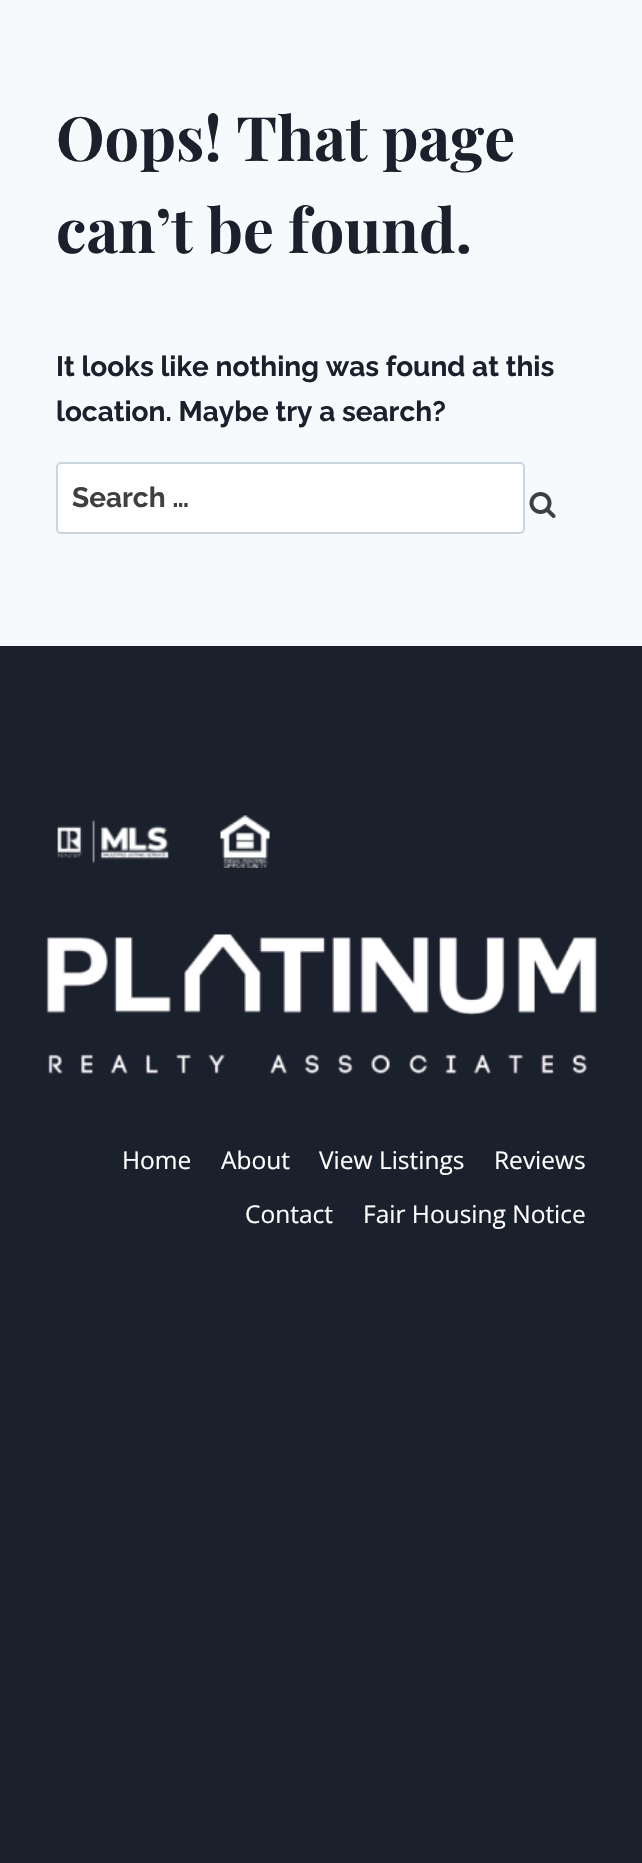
void draw(SkCanvas* c) {
SkPaint p;
p.setAntiAlias(true);
auto F=[&](const char* family, int weight, float size, bool italic = false){SkFontStyle style(weight, SkFontStyle::kNormal_Width,italic ? SkFontStyle::kItalic_Slant : SkFontStyle::kUpright_Slant);SkFont result(fontMgr->matchFamilyStyle(family, style), size);result.setSubpixel(true);return result;};
auto T=[&](const char* s, float x, float y, const SkFont& font){c->drawString(s, x, y, font, p);};
auto R=[&](float x, float y, float w, float h){c->drawRect(SkRect::MakeXYWH(x, y, w, h), p);};
auto I=[&](const char* path, float x, float y, float w, float h){auto image = SkImages::DeferredFromEncodedData(SkData::MakeFromFileName(path));c->drawImageRect(image, SkRect::MakeXYWH(x, y, w, h), SkSamplingOptions());};
c->clear(0xfff7fafc);
auto f1 = F("Playfair Display",700,61.25);
p.setColor(0xff1a202c);
T("Oops! That page",56,161,f1);
T("can’t be found.",56,253,f1);
auto f2 = F("Raleway",700,28);
T("It looks like nothing was found at this",56,376,f2);
T("location. Maybe try a search?",56,421,f2);
p.setColor(0xffffffff);
c->drawRoundRect(SkRect::MakeXYWH(57,463,467,70),4,4,p);
p.setStroke(true);
p.setStrokeWidth(2);
p.setColor(0xffcbd5e0);
c->drawRoundRect(SkRect::MakeXYWH(57,463,467,70),4,4,p);
p.setStroke(false);
p.setColor(0xff3f3f3f);
T("Search …",72,507,f2);
I("1.png",529,492,27,26);
p.setColor(0xff1a202c);
R(0,646,642,1217);
I("2.png",57,815,213,53);
I("3.png",46,934,552,140);
auto f3 = F("Open Sans",400,24.5);
p.setColor(0xffffffff);
T("Home",122,1169,f3);
T("About",221,1169,f3);
T("View Listings",319,1169,f3);
T("Reviews",494,1169,f3);
T("Contact",245,1223,f3);
T("Fair Housing Notice",363,1223,f3);
}
